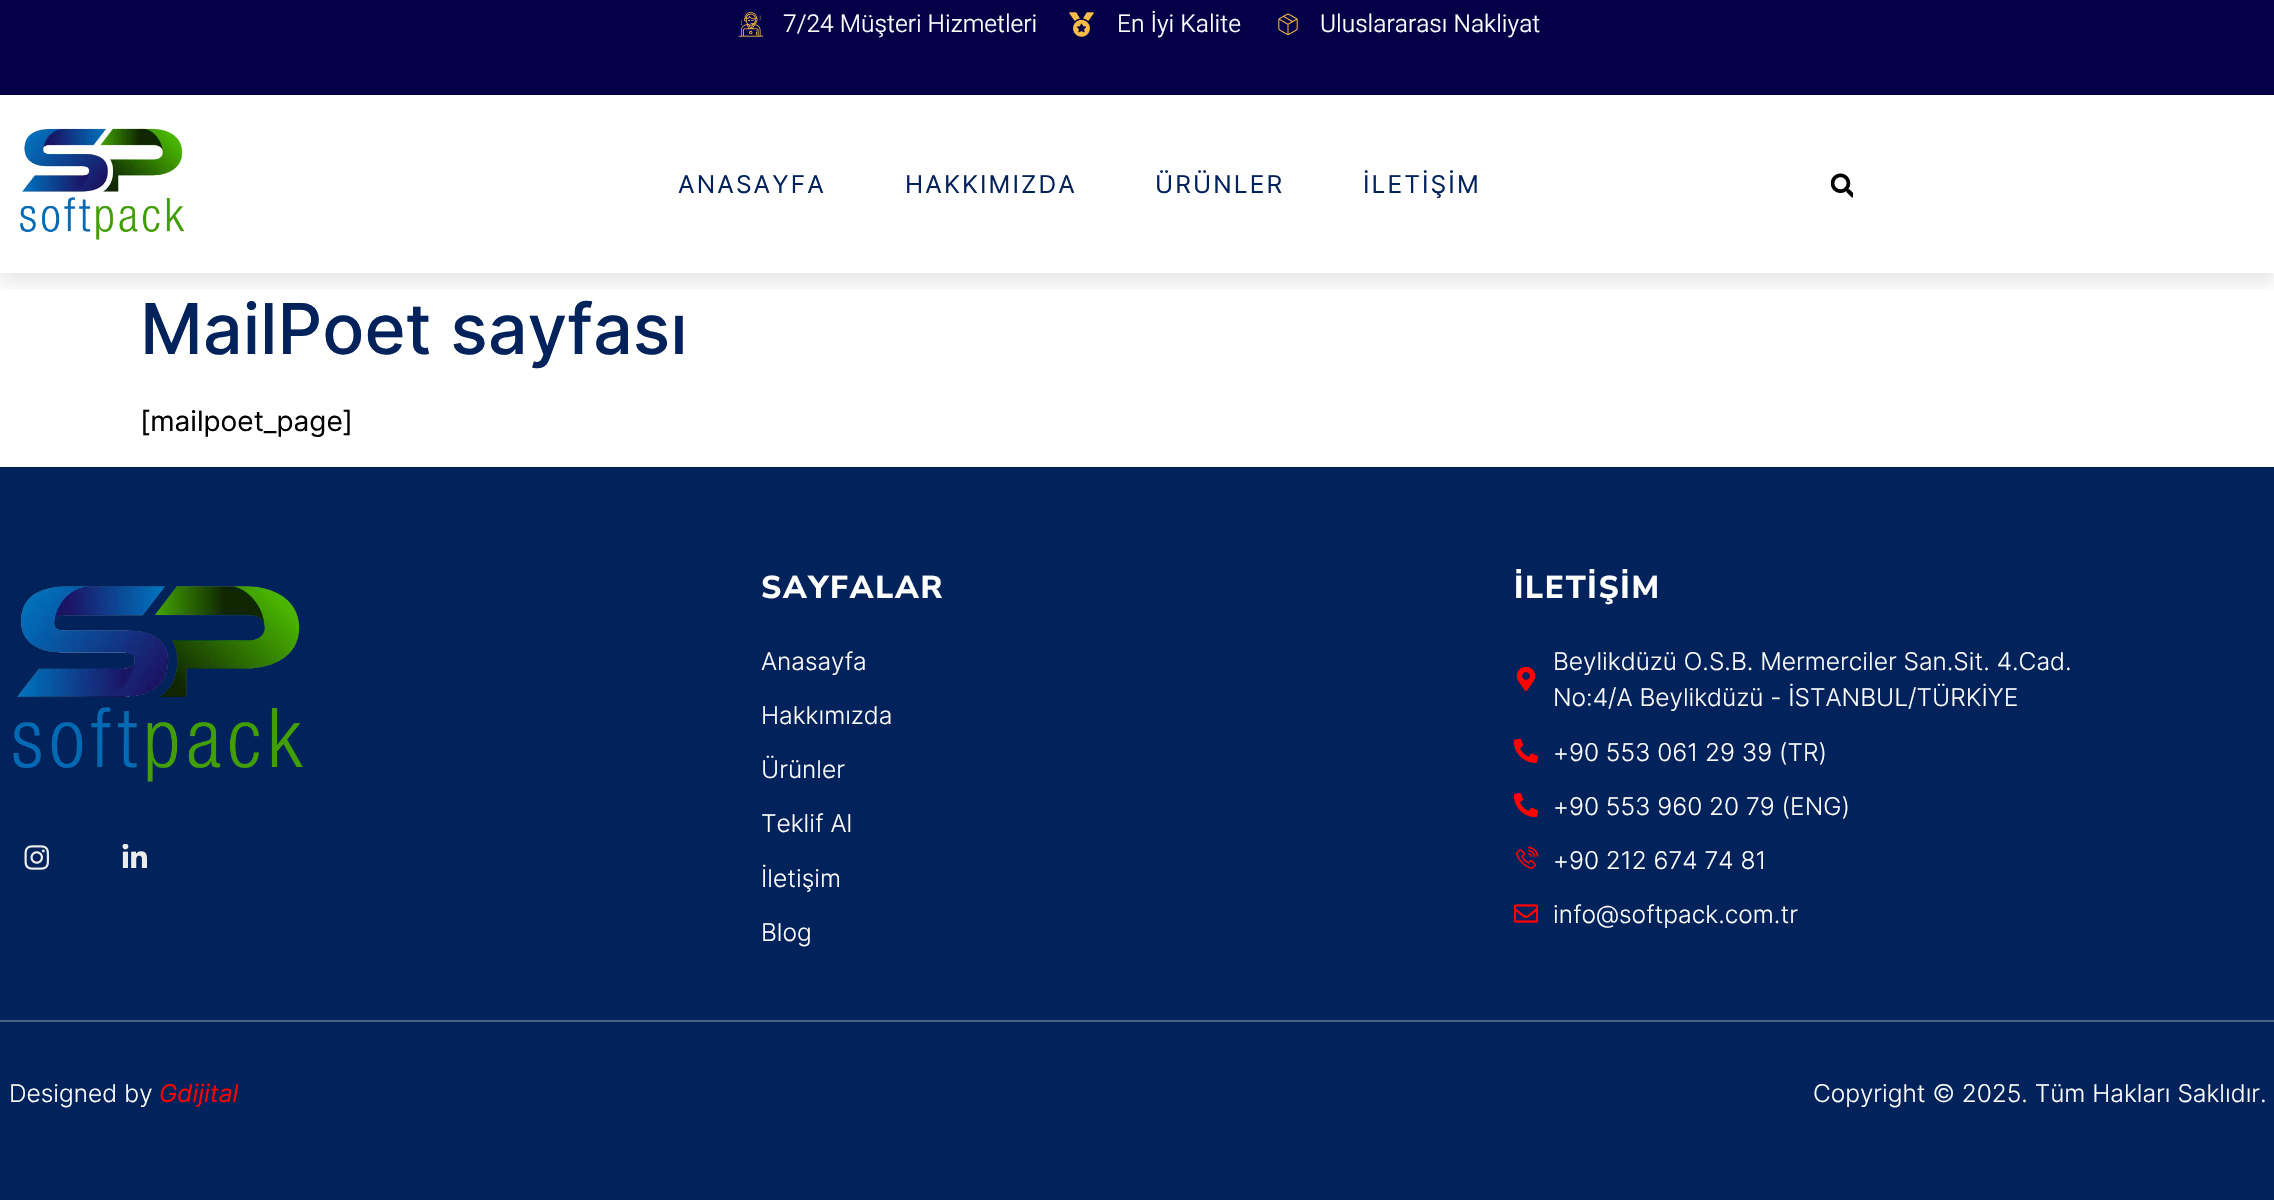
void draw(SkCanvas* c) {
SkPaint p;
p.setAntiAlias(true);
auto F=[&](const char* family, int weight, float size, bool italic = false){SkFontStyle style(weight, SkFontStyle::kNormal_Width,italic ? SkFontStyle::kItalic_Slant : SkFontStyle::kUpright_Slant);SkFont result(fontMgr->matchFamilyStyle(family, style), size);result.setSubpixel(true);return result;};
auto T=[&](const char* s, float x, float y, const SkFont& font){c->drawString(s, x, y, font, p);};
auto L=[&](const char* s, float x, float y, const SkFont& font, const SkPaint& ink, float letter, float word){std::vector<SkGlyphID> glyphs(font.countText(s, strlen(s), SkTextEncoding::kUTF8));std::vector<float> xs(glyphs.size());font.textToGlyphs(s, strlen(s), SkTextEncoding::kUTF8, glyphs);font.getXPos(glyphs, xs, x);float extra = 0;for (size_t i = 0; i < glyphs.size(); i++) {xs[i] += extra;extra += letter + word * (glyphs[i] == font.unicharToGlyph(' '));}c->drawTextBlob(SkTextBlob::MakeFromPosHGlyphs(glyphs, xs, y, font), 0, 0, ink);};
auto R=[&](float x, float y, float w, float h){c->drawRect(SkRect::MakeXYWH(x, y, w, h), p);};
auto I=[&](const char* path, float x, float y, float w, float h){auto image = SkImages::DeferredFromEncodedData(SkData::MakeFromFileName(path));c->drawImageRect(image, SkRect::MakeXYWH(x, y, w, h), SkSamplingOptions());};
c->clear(0xffffffff);
c->save();
c->clipRect(SkRect::MakeXYWH(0,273,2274,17));
p.setColor(0x1a000000);
p.setMaskFilter(SkMaskFilter::MakeBlur(kNormal_SkBlurStyle, 9));
c->drawRect(SkRect::MakeXYWH(0,103,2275,179),p);
p.setMaskFilter(nullptr);
c->restore();
p.setColor(0xff030048);
R(0,0,2274,95);
I("1.png",738,12,25,25);
auto f1 = F("Heebo",300,24.5);
p.setColor(0xffffffff);
T("7/24 Müşteri Hizmetleri",783,32,f1);
I("2.png",1069,12,25,25);
T("En İyi Kalite",1117,32,f1);
I("3.png",1278,13,20,22);
T("Uluslararası Nakliyat",1320,32,f1);
I("4.png",20,128,165,112);
auto f2 = F("Inter",400,24.5);
p.setColor(0xff01225a);
L("ANASAYFA",678,193,f2,p,2.1,0);
L("HAKKIMIZDA",905,193,f2,p,2.1,0);
L("ÜRÜNLER",1155,193,f2,p,2.1,0);
L("İLETİŞİM",1363,193,f2,p,2.1,0);
I("5.png",1831,173,22,25);
auto f3 = F("Inter",500,70);
T("MailPoet sayfası",140,354,f3);
auto f4 = F("Inter",400,28);
p.setColor(0xff000000);
T("[mailpoet_page]",140,431,f4);
p.setColor(0xff01225a);
R(0,467,2274,733);
I("6.png",13,586,290,196);
I("7.png",24,845,25,25);
I("8.png",122,844,25,24);
auto f5 = F("Nunito Sans",800,31.5);
p.setColor(0xffffffff);
L("SAYFALAR",761,598,f5,p,1.75,0);
auto f6 = F("Inter",300,24.5);
T("Anasayfa",761,670,f6);
T("Hakkımızda",761,724,f6);
T("Ürünler",761,778,f6);
T("Teklif Al",761,832,f6);
T("İletişim",761,887,f6);
T("Blog",761,941,f6);
L("İLETİŞİM",1514,598,f5,p,1.75,0);
I("9.png",1516,667,20,24);
T("Beylikdüzü O.S.B. Mermerciler San.Sit. 4.Cad.",1553,670,f6);
T("No:4/A Beylikdüzü - İSTANBUL/TÜRKİYE",1553,706,f6);
I("10.png",1514,739,24,24);
T("+90 553 061 29 39 (TR)",1553,761,f6);
I("11.png",1514,793,24,24);
T("+90 553 960 20 79 (ENG)",1553,815,f6);
I("12.png",1516,846,23,23);
T("+90 212 674 74 81",1553,869,f6);
I("13.png",1514,904,24,19);
T("info@softpack.com.tr",1553,923,f6);
p.setColor(0xff4b6084);
R(0,1020,2274,2);
p.setColor(0xffffffff);
T("Designed by",9,1102,f6);
auto f7 = F("Inter",400,24.5,true);
p.setColor(0xffff0000);
T("Gdijital",159,1102,f7);
p.setColor(0xffffffff);
T("Copyright © 2025. Tüm Hakları Saklıdır.",1813,1102,f6);
}
